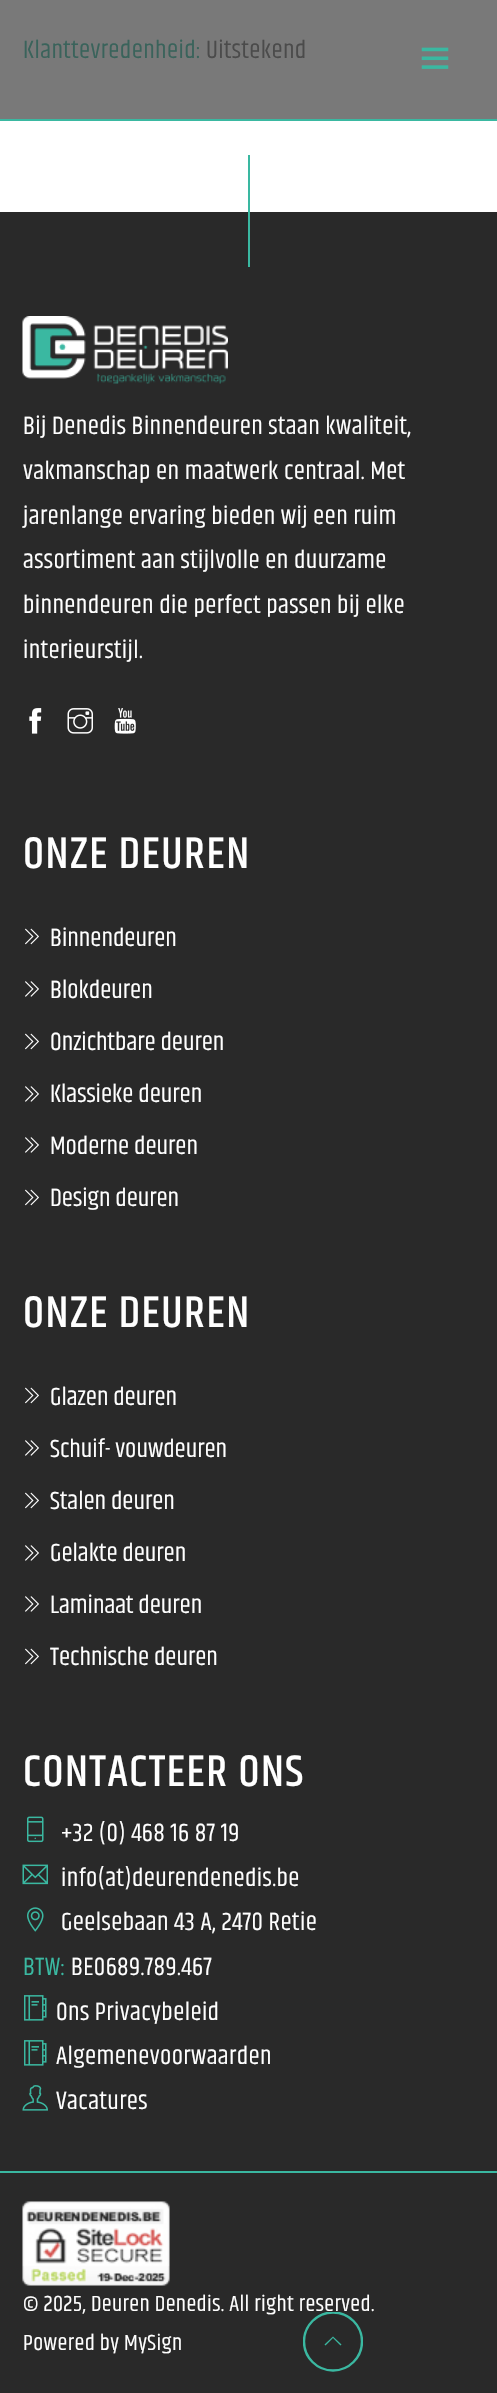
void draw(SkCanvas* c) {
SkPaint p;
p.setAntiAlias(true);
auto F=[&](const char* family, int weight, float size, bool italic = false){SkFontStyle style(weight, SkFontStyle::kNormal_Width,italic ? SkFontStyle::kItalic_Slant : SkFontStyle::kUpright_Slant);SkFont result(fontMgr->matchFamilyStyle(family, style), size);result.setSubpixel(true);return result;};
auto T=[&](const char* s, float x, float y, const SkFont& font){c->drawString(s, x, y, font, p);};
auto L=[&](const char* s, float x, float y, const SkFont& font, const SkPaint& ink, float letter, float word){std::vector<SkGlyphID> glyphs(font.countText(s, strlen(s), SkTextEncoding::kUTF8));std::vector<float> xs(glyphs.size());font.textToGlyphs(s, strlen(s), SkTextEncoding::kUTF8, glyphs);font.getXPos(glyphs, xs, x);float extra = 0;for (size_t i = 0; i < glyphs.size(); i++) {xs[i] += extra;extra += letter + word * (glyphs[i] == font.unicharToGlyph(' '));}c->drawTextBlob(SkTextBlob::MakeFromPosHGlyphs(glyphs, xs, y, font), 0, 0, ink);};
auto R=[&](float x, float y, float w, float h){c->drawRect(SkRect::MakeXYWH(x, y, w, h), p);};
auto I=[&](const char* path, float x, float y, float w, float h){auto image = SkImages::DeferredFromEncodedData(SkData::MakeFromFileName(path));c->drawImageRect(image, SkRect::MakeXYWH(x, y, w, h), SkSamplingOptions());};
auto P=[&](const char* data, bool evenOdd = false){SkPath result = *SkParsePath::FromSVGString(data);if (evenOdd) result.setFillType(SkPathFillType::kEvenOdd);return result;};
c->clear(0xffffffff);
p.setColor(0xff797979);
R(0,0,497,119);
auto f1 = F("Khand",400,25.5);
p.setColor(0xff3a635b);
L("Klanttevredenheid:",23,58,f1,p,.4,0);
p.setColor(0xff4b4b4b);
L("Uitstekend",206,58,f1,p,.4,0);
p.setColor(0xff3ab8a1);
R(0,119,497,2);
I("1.png",421,47,28,22);
p.setColor(0xff292929);
R(0,212,497,2181);
p.setColor(0xff3ab8a1);
R(248,155,2,112);
I("2.png",22,316,206,68);
p.setColor(0xffffffff);
L("Bij Denedis Binnendeuren staan kwaliteit,",23,434,f1,p,.4,0);
L("vakmanschap en maatwerk centraal. Met",23,479,f1,p,.4,0);
L("jarenlange ervaring bieden wij een ruim",23,524,f1,p,.4,0);
L("assortiment aan stijlvolle en duurzame",23,568,f1,p,.4,0);
L("binnendeuren die perfect passen bij elke",23,613,f1,p,.4,0);
L("interieurstijl.",23,658,f1,p,.4,0);
I("3.png",29,708,13,26);
I("4.png",67,708,26,26);
I("5.png",114,708,22,26);
auto f2 = F("Khand",500,45);
L("ONZE DEUREN",23,868,f2,p,1.5,0);
I("6.png",25,928,14,17);
T("Binnendeuren",50,946,f1);
I("7.png",25,981,14,16);
T("Blokdeuren",50,998,f1);
I("6.png",25,1033,14,17);
T("Onzichtbare deuren",50,1050,f1);
I("7.png",25,1086,14,16);
T("Klassieke deuren",50,1102,f1);
I("7.png",25,1137,14,16);
T("Moderne deuren",50,1154,f1);
I("6.png",25,1189,14,17);
T("Design deuren",50,1206,f1);
L("ONZE DEUREN",23,1327,f2,p,1.5,0);
I("6.png",25,1387,14,17);
T("Glazen deuren",50,1405,f1);
I("7.png",25,1440,14,16);
T("Schuif- vouwdeuren",50,1457,f1);
I("6.png",25,1492,14,17);
T("Stalen deuren",50,1509,f1);
I("7.png",25,1545,14,16);
T("Gelakte deuren",50,1561,f1);
I("7.png",25,1596,14,16);
T("Laminaat deuren",50,1613,f1);
I("6.png",25,1648,14,17);
T("Technische deuren",50,1665,f1);
L("CONTACTEER ONS",23,1786,f2,p,1.5,0);
I("8.png",27,1816,17,27);
L("+32 (0) 468 16 87 19",61,1841,f1,p,.4,0);
I("9.png",22,1864,26,21);
L("info(at)deurendenedis.be",61,1886,f1,p,.4,0);
I("10.png",27,1907,17,25);
L("Geelsebaan 43 A, 2470 Retie",61,1930,f1,p,.4,0);
p.setColor(0xff3ab8a1);
L("BTW:",23,1975,f1,p,.4,0);
p.setColor(0xffffffff);
L("BE0689.789.467",71,1975,f1,p,.4,0);
I("11.png",24,1995,23,26);
L("Ons Privacybeleid",56,2020,f1,p,.4,0);
I("11.png",24,2040,23,26);
L("Algemenevoorwaarden",56,2064,f1,p,.4,0);
I("12.png",22,2085,26,26);
L("Vacatures",56,2109,f1,p,.4,0);
p.setColor(0xff3ab8a1);
R(0,2171,497,2);
I("13.png",22,2201,148,85);
auto f3 = F("Khand",400,22.5);
p.setColor(0xffffffff);
L("© 2025, Deuren Denedis. All right reserved.",23,2311,f3,p,.4,0);
L("Powered by MySign",23,2350,f3,p,.4,0);
c->save();
c->clipRect(SkRect::MakeXYWH(303,2312,60,60));
p.setStroke(true);
p.setStrokeWidth(2.4);
p.setColor(0xff3ab8a1);
c->drawPath(P("M333 2312.5c16 0 29 13 29 29c0 16-13 29-29 29c-16 0-29-13-29-29c0-16 13-29 29-29"),p);
c->restore();
p.setStroke(false);
c->drawPath(P("M341.5 2344.5l-1 1l-7.5-7.5l-7.5 7.5l-1-1l8.5-8z"),p);
}
